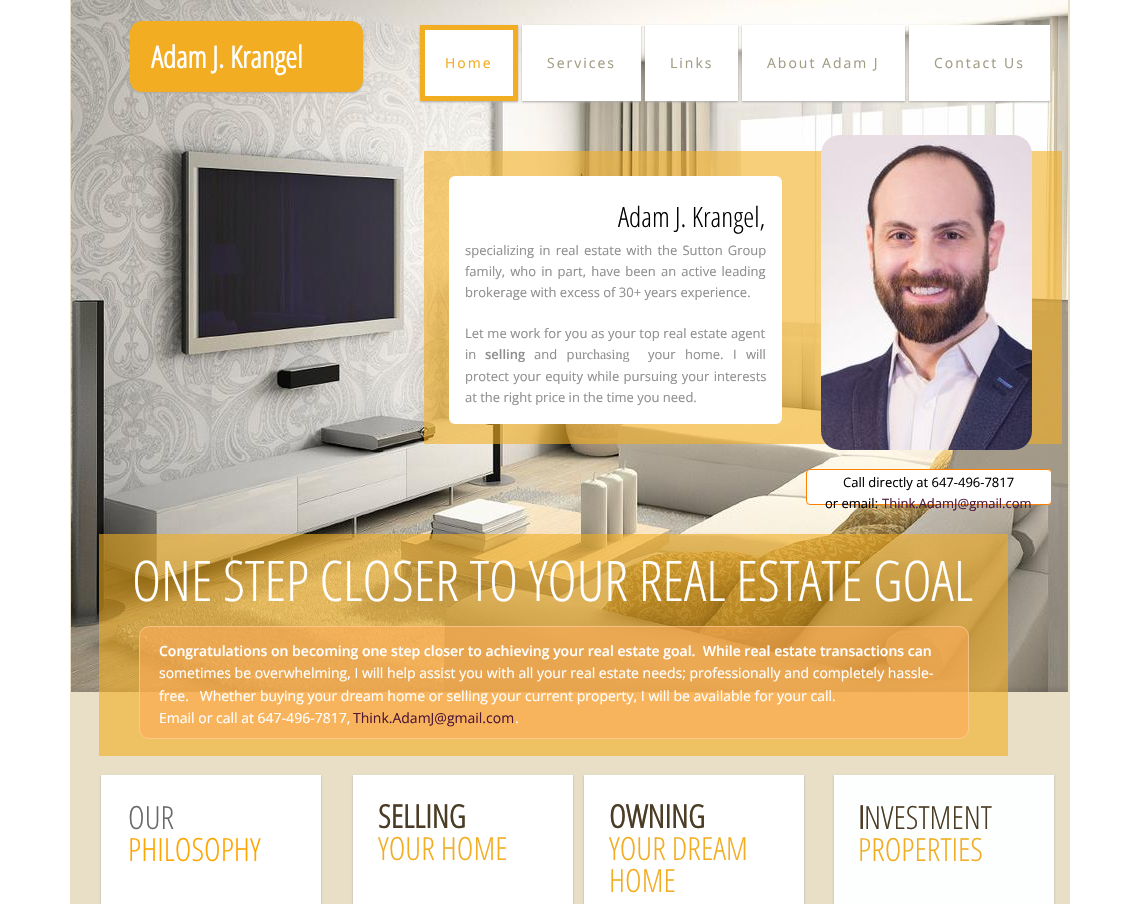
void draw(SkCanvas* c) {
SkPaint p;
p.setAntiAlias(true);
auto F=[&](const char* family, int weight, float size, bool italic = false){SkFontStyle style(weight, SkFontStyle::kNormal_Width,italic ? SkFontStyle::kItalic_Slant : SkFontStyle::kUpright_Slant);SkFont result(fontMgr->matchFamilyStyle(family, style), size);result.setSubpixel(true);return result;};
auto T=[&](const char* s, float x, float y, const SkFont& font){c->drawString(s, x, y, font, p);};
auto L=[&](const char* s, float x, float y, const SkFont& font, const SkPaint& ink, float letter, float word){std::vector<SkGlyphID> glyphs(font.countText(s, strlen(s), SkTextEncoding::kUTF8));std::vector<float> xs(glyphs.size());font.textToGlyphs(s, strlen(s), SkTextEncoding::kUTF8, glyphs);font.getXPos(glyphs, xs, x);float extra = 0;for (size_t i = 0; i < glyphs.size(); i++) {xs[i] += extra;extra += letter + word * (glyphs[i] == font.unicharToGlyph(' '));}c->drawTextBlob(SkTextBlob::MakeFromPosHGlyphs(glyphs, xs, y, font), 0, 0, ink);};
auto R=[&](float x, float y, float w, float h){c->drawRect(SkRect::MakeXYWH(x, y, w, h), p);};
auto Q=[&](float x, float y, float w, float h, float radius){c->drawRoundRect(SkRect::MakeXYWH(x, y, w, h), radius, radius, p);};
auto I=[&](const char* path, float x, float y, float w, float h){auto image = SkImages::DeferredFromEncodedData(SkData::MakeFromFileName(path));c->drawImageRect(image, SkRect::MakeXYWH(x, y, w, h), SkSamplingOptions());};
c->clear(0xffffffff);
p.setColor(0xffe8dfc6);
R(70,0,1000,904);
I("1.png",71,0,997,692);
p.setColor(0xffaaaaaa);
p.setMaskFilter(SkMaskFilter::MakeBlur(kNormal_SkBlurStyle, 1));
c->drawRoundRect(SkRect::MakeXYWH(130,22,233,71),12,12,p);
p.setMaskFilter(nullptr);
p.setColor(0xfff2ad22);
Q(130,21,233,71,12);
auto f1 = F("Open Sans Condensed",700,30);
p.setColor(0xffffffff);
T("Adam J. Krangel",151,68,f1);
p.setColor(0xffaaaaaa);
p.setMaskFilter(SkMaskFilter::MakeBlur(kNormal_SkBlurStyle, 1));
c->drawRect(SkRect::MakeXYWH(420,26,98,76),p);
p.setMaskFilter(nullptr);
p.setColor(0xffffffff);
c->drawRect(SkRect::MakeXYWH(422.5,27.5,93,71),p);
p.setStroke(true);
p.setStrokeWidth(5);
p.setColor(0xfff2ad22);
c->drawRect(SkRect::MakeXYWH(422.5,27.5,93,71),p);
auto f2 = F("Open Sans",400,14);
p.setStroke(false);
L("Home",445,68,f2,p,2,0);
p.setColor(0xffaaaaaa);
p.setMaskFilter(SkMaskFilter::MakeBlur(kNormal_SkBlurStyle, 1));
c->drawRect(SkRect::MakeXYWH(522,26,119,76),p);
p.setMaskFilter(nullptr);
p.setColor(0xffffffff);
R(522,25,119,76);
p.setColor(0xffa19d84);
L("Services",547,68,f2,p,2,0);
p.setColor(0xffaaaaaa);
p.setMaskFilter(SkMaskFilter::MakeBlur(kNormal_SkBlurStyle, 1));
c->drawRect(SkRect::MakeXYWH(645,26,93,76),p);
p.setMaskFilter(nullptr);
p.setColor(0xffffffff);
R(645,25,93,76);
p.setColor(0xffa19d84);
L("Links",670,68,f2,p,2,0);
p.setColor(0xffaaaaaa);
p.setMaskFilter(SkMaskFilter::MakeBlur(kNormal_SkBlurStyle, 1));
c->drawRect(SkRect::MakeXYWH(742,26,163,76),p);
p.setMaskFilter(nullptr);
p.setColor(0xffffffff);
R(742,25,163,76);
p.setColor(0xffa19d84);
L("About Adam J",767,68,f2,p,2,0);
p.setColor(0xffaaaaaa);
p.setMaskFilter(SkMaskFilter::MakeBlur(kNormal_SkBlurStyle, 1));
c->drawRect(SkRect::MakeXYWH(909,26,141,76),p);
p.setMaskFilter(nullptr);
p.setColor(0xffffffff);
R(909,25,141,76);
p.setColor(0xffa19d84);
L("Contact Us",934,68,f2,p,2,0);
p.setColor(0x99f2ad22);
R(424,151,638,293);
I("2.png",821,135,211,315);
p.setColor(0xffffffff);
Q(449,176,333,248,6);
auto f3 = F("Open Sans Condensed",300,28);
p.setColor(0xff000000);
T("Adam J. Krangel,",618,227,f3);
auto f4 = F("Open Sans",400,13);
p.setColor(0xff8f8f8f);
L("specializing in real estate with the Sutton Group",465,255,f4,p,0,1.75);
L("family, who in part, have been an active leading",465,276,f4,p,0,1.75);
T("brokerage with excess of 30+ years experience.",465,297,f4);
L("Let me work for you as your top real estate agent",465,338,f4,p,0,.25);
T("in",465,359,f4);
auto f5 = F("Open Sans",600,13);
T("selling",485,359,f5);
L("and p",534,359,f4,p,0,6);
auto f6 = F("Liberation Serif",400,14);
T("urchasing",575,359,f6);
L("your home. I will",648,359,f4,p,0,6);
L("protect your equity while pursuing your interests",465,381,f4,p,0,1);
T("at the right price in the time you need.",465,402,f4);
p.setColor(0xffffffff);
c->drawRoundRect(SkRect::MakeXYWH(806.5,469.5,245,35),3.5,3.5,p);
p.setStroke(true);
p.setStrokeWidth(1);
p.setColor(0xffff7f00);
c->drawRoundRect(SkRect::MakeXYWH(806.5,469.5,245,35),3.5,3.5,p);
p.setStroke(false);
p.setColor(0xff000000);
T("Call directly at 647-496-7817",843,487,f4);
T("or email:",825,508,f4);
p.setColor(0xff4d1636);
T("Think.AdamJ@gmail.com",882,508,f4);
p.setColor(0x99f2ad22);
R(99,534,909,222);
auto f7 = F("Open Sans Condensed",300,56);
p.setColor(0xffffffff);
T("ONE STEP CLOSER TO YOUR REAL ESTATE GOAL",132,601,f7);
p.setColor(0x91ffaa56);
Q(139,626,830,113,10);
p.setStroke(true);
p.setColor(0x91ffd4aa);
c->drawRoundRect(SkRect::MakeXYWH(139.5,626.5,829,112),9.5,9.5,p);
auto f8 = F("Open Sans",600,14);
p.setStroke(false);
p.setColor(0xffffffff);
T("Congratulations on becoming one step closer to achieving your real estate goal.  While real estate transactions can",159,656,f8);
T("sometimes be overwhelming, I will help assist you with all your real estate needs; professionally and completely hassle-",159,678,f2);
T("free.   Whether buying your dream home or selling your current property, I will be available for your call.",159,701,f2);
T("Email or call at 647-496-7817,",159,723,f2);
p.setColor(0xff4d1636);
T("Think.AdamJ@gmail.com",353,723,f2);
p.setColor(0xffffffff);
T(".",515,723,f2);
p.setColor(0xffaaaaaa);
p.setMaskFilter(SkMaskFilter::MakeBlur(kNormal_SkBlurStyle, 1));
c->drawRect(SkRect::MakeXYWH(101,776,220,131),p);
p.setMaskFilter(nullptr);
p.setColor(0xffffffff);
R(101,775,220,129);
p.setColor(0xffaaaaaa);
p.setMaskFilter(SkMaskFilter::MakeBlur(kNormal_SkBlurStyle, 1));
c->drawRect(SkRect::MakeXYWH(353,776,220,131),p);
p.setMaskFilter(nullptr);
p.setColor(0xffffffff);
R(353,775,220,129);
p.setColor(0xffaaaaaa);
p.setMaskFilter(SkMaskFilter::MakeBlur(kNormal_SkBlurStyle, 1));
c->drawRect(SkRect::MakeXYWH(584,776,220,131),p);
p.setMaskFilter(nullptr);
p.setColor(0xffffffff);
R(584,775,220,129);
p.setColor(0xffaaaaaa);
p.setMaskFilter(SkMaskFilter::MakeBlur(kNormal_SkBlurStyle, 1));
c->drawRect(SkRect::MakeXYWH(834,776,220,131),p);
p.setMaskFilter(nullptr);
p.setColor(0xfffcfffd);
R(834,775,220,129);
auto f9 = F("Open Sans Condensed",300,32);
p.setColor(0xff696969);
T("OUR",128,829,f9);
p.setColor(0xffffa500);
T("PHILOSOPHY",128,861,f9);
auto f10 = F("Open Sans Condensed",700,32);
p.setColor(0xff4b3c25);
T("SELLING",378,828,f10);
p.setColor(0xfff2ad22);
T("YOUR HOME",378,860,f9);
p.setColor(0xff4b3c25);
T("OWNING",609,828,f10);
p.setColor(0xfff2ad22);
T("YOUR DREAM",609,860,f9);
T("HOME",609,892,f9);
p.setColor(0xff4b3c25);
T("I",858,829,f10);
T("NVESTMENT",864,829,f9);
p.setColor(0xfff2ad22);
T("PROPERTIES",858,861,f9);
}
